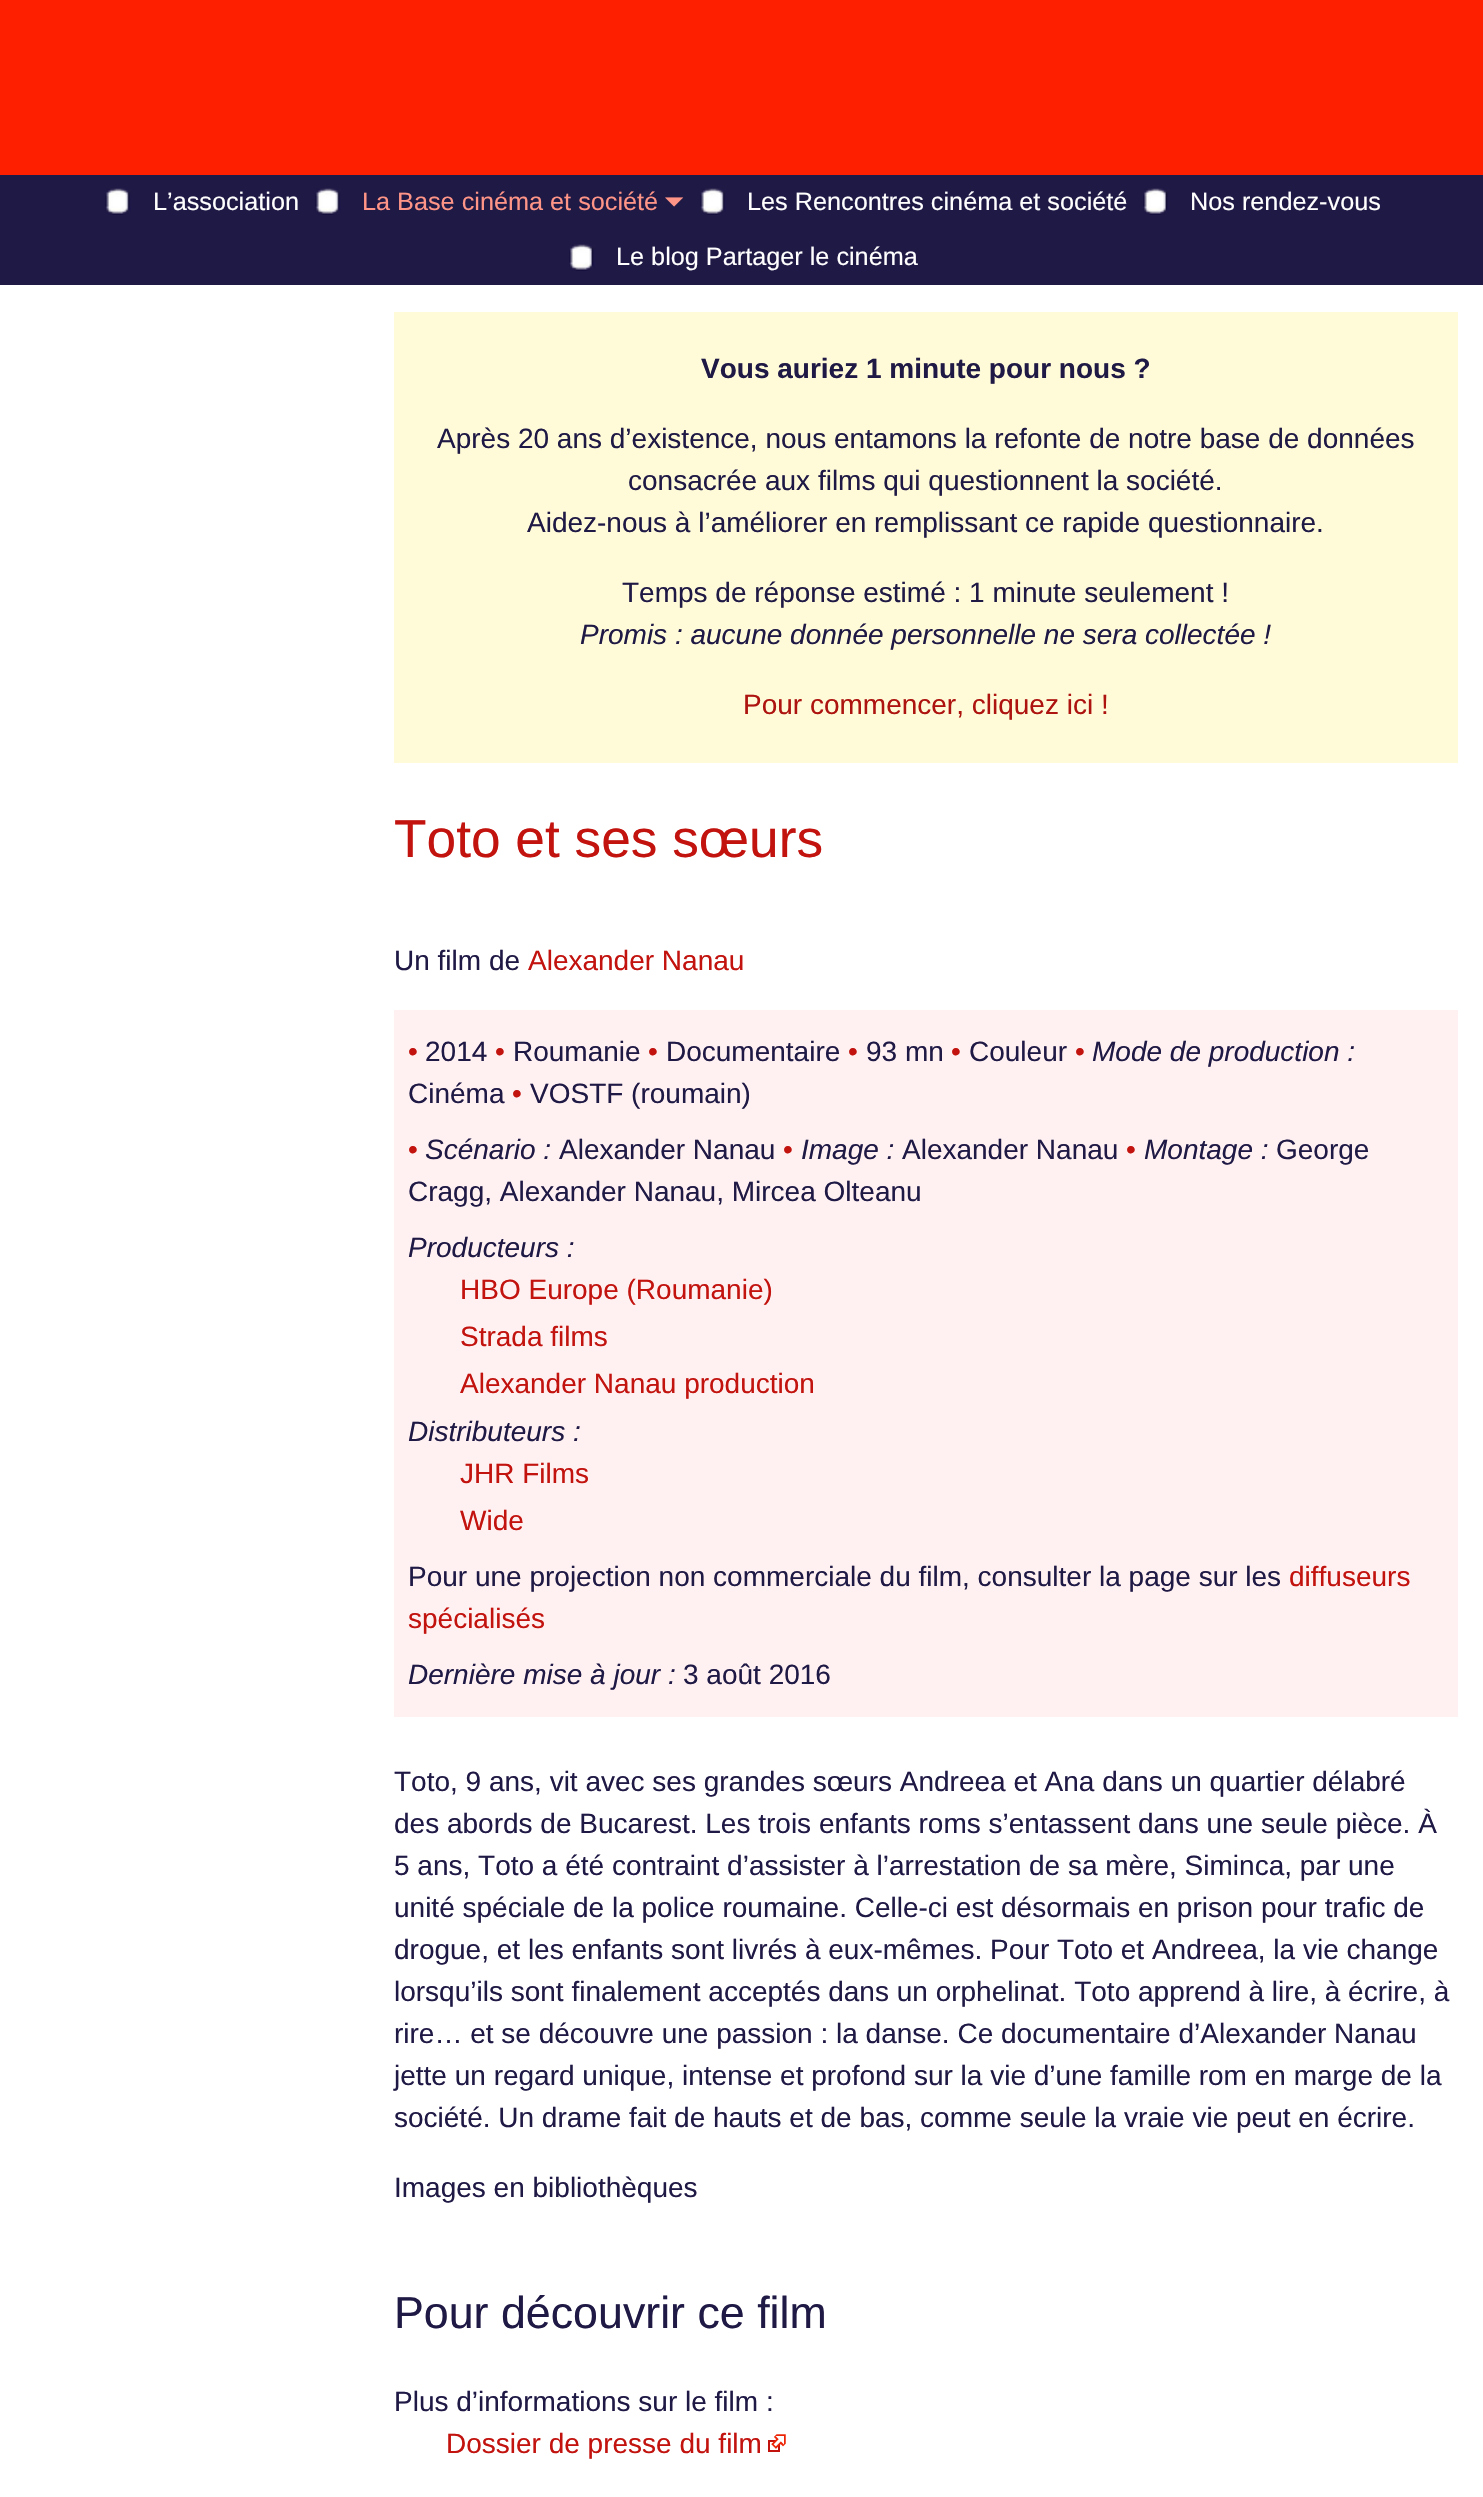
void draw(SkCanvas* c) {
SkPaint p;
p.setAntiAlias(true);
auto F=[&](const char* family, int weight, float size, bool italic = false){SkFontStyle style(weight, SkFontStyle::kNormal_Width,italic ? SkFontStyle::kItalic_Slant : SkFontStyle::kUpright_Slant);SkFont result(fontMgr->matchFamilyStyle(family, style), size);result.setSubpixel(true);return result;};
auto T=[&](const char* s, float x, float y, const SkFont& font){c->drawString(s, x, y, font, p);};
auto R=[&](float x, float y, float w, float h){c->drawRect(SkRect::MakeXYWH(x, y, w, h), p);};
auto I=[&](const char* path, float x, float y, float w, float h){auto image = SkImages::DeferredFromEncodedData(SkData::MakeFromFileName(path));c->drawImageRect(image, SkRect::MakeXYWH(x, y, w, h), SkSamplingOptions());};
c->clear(0xffffffff);
p.setColor(0xfffe1f00);
R(0,0,1483,175);
p.setColor(0xff1f1945);
R(0,175,1483,110);
I("1.png",105,188,26,27);
auto f1 = F("Liberation Sans",400,25.25);
p.setColor(0xffffffff);
T("L’association",153,210,f1);
I("2.png",315,188,26,27);
p.setColor(0xffff9587);
T("La Base cinéma et société",362,210,f1);
auto f2 = F("FreeSans",400,25.25);
T("⏷",664,210,f2);
I("2.png",700,188,26,27);
p.setColor(0xffffffff);
T("Les Rencontres cinéma et société",747,210,f1);
I("3.png",1143,188,26,27);
T("Nos rendez-vous",1190,210,f1);
I("3.png",569,244,26,27);
T("Le blog Partager le cinéma",616,265,f1);
p.setColor(0xfffffbd8);
R(394,312,1064,451);
auto f3 = F("Liberation Sans",700,28);
p.setColor(0xff1f1945);
T("Vous auriez 1 minute pour nous ?",701,378,f3);
auto f4 = F("Liberation Sans",400,28);
T("Après 20 ans d’existence, nous entamons la refonte de notre base de données",437,448,f4);
T("consacrée aux films qui questionnent la société.",628,490,f4);
T("Aidez-nous à l’améliorer en remplissant ce rapide questionnaire.",527,532,f4);
T("Temps de réponse estimé : 1 minute seulement !",622,602,f4);
auto f5 = F("Liberation Sans",400,28,true);
T("Promis : aucune donnée personnelle ne sera collectée !",580,644,f5);
p.setColor(0xffad130f);
T("Pour commencer, cliquez ici !",743,714,f4);
auto f6 = F("Liberation Sans",400,53.25);
p.setColor(0xffc2130f);
T("Toto et ses sœurs",394,857,f6);
p.setColor(0xff1f1945);
T("Un film de",394,970,f4);
p.setColor(0xffc2130f);
T("Alexander Nanau",528,970,f4);
p.setColor(0xfffff1f1);
R(394,1010,1064,707);
p.setColor(0xffc2130f);
T("•",408,1061,f4);
p.setColor(0xff1f1945);
T("2014",425,1061,f4);
p.setColor(0xffc2130f);
T("•",495,1061,f4);
p.setColor(0xff1f1945);
T("Roumanie",513,1061,f4);
p.setColor(0xffc2130f);
T("•",648,1061,f4);
p.setColor(0xff1f1945);
T("Documentaire",666,1061,f4);
p.setColor(0xffc2130f);
T("•",848,1061,f4);
p.setColor(0xff1f1945);
T("93 mn",866,1061,f4);
p.setColor(0xffc2130f);
T("•",951,1061,f4);
p.setColor(0xff1f1945);
T("Couleur",969,1061,f4);
p.setColor(0xffc2130f);
T("•",1075,1061,f4);
p.setColor(0xff1f1945);
T("Mode de production :",1092,1061,f5);
T("Cinéma",408,1103,f4);
p.setColor(0xffc2130f);
T("•",512,1103,f4);
p.setColor(0xff1f1945);
T("VOSTF (roumain)",530,1103,f4);
p.setColor(0xffc2130f);
T("•",408,1159,f4);
p.setColor(0xff1f1945);
T("Scénario :",425,1159,f5);
T("Alexander Nanau",559,1159,f4);
p.setColor(0xffc2130f);
T("•",783,1159,f4);
p.setColor(0xff1f1945);
T("Image :",801,1159,f5);
T("Alexander Nanau",902,1159,f4);
p.setColor(0xffc2130f);
T("•",1126,1159,f4);
p.setColor(0xff1f1945);
T("Montage :",1144,1159,f5);
T("George",1276,1159,f4);
T("Cragg, Alexander Nanau, Mircea Olteanu",408,1201,f4);
T("Producteurs :",408,1257,f5);
p.setColor(0xffc2130f);
T("HBO Europe (Roumanie)",460,1299,f4);
T("Strada films",460,1346,f4);
T("Alexander Nanau production",460,1393,f4);
p.setColor(0xff1f1945);
T("Distributeurs :",408,1441,f5);
p.setColor(0xffc2130f);
T("JHR Films",460,1483,f4);
T("Wide",460,1530,f4);
p.setColor(0xff1f1945);
T("Pour une projection non commerciale du film, consulter la page sur les",408,1586,f4);
p.setColor(0xffc2130f);
T("diffuseurs",1289,1586,f4);
T("spécialisés",408,1628,f4);
p.setColor(0xff1f1945);
T("Dernière mise à jour :",408,1684,f5);
T("3 août 2016",683,1684,f4);
T("Toto, 9 ans, vit avec ses grandes sœurs Andreea et Ana dans un quartier délabré",394,1791,f4);
T("des abords de Bucarest. Les trois enfants roms s’entassent dans une seule pièce. À",394,1833,f4);
T("5 ans, Toto a été contraint d’assister à l’arrestation de sa mère, Siminca, par une",394,1875,f4);
T("unité spéciale de la police roumaine. Celle-ci est désormais en prison pour trafic de",394,1917,f4);
T("drogue, et les enfants sont livrés à eux-mêmes. Pour Toto et Andreea, la vie change",394,1959,f4);
T("lorsqu’ils sont finalement acceptés dans un orphelinat. Toto apprend à lire, à écrire, à",394,2001,f4);
T("rire… et se découvre une passion : la danse. Ce documentaire d’Alexander Nanau",394,2043,f4);
T("jette un regard unique, intense et profond sur la vie d’une famille rom en marge de la",394,2085,f4);
T("société. Un drame fait de hauts et de bas, comme seule la vraie vie peut en écrire.",394,2127,f4);
T("Images en bibliothèques",394,2197,f4);
auto f7 = F("Liberation Sans",400,44.75);
T("Pour découvrir ce film",394,2328,f7);
T("Plus d’informations sur le film :",394,2411,f4);
p.setColor(0xffc2130f);
T("Dossier de presse du film",446,2453,f4);
I("4.png",768,2434,18,18);
}
